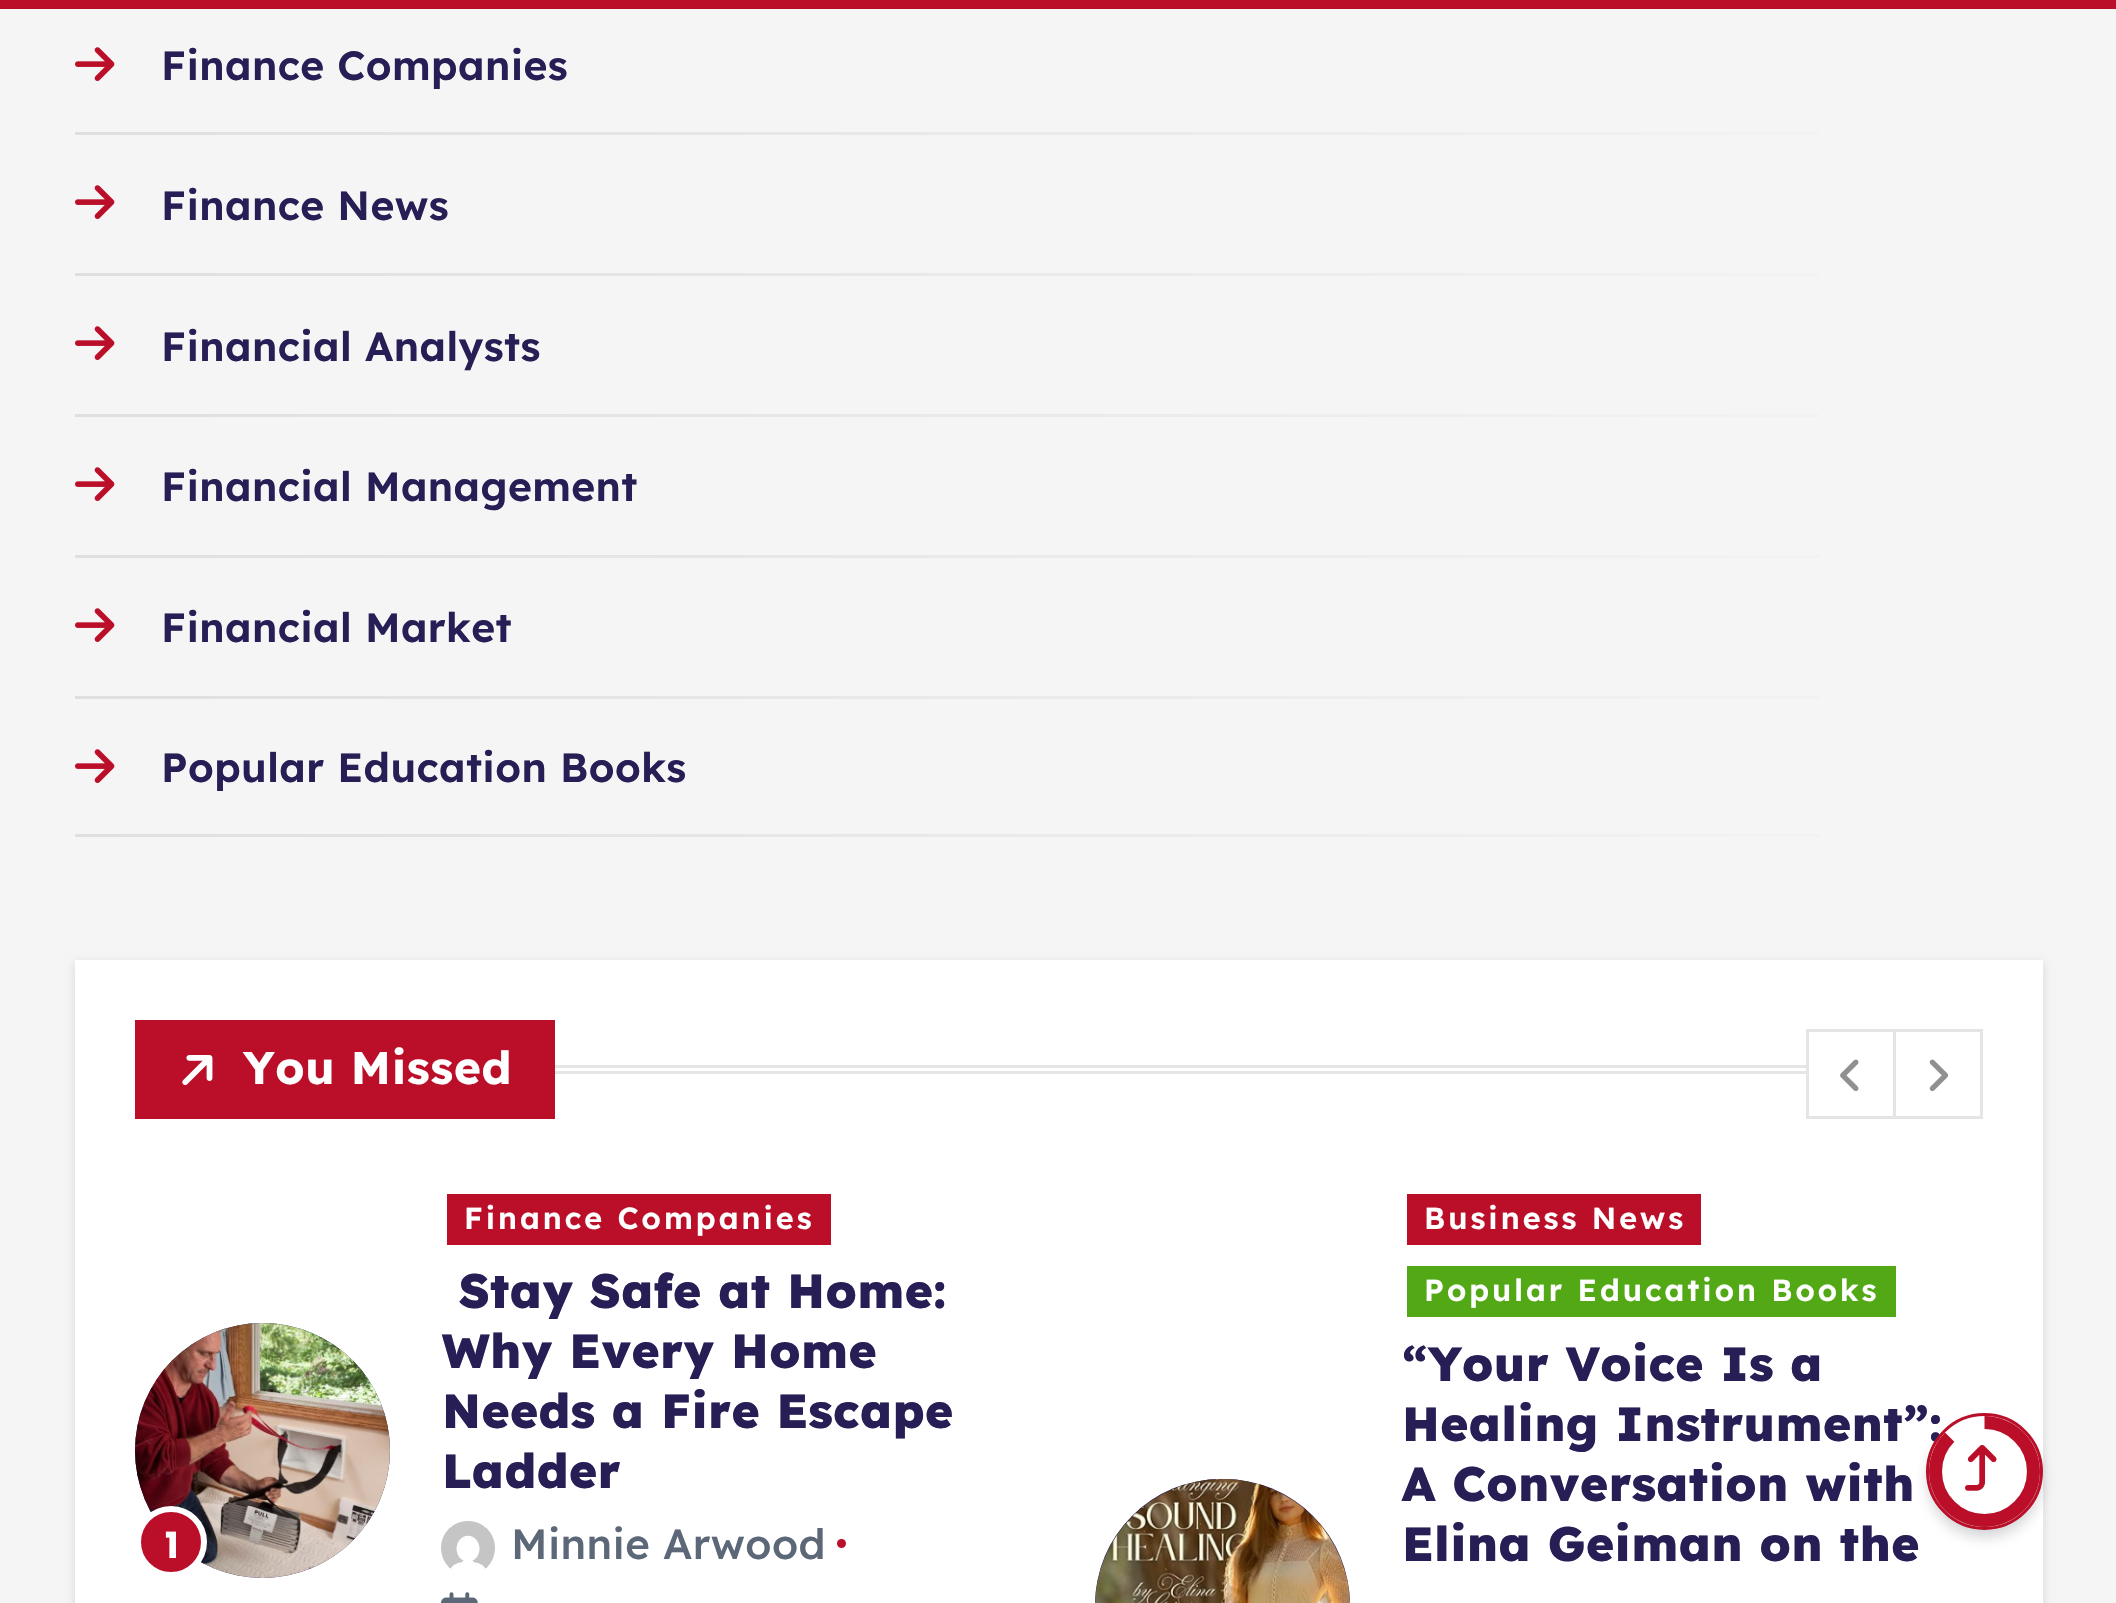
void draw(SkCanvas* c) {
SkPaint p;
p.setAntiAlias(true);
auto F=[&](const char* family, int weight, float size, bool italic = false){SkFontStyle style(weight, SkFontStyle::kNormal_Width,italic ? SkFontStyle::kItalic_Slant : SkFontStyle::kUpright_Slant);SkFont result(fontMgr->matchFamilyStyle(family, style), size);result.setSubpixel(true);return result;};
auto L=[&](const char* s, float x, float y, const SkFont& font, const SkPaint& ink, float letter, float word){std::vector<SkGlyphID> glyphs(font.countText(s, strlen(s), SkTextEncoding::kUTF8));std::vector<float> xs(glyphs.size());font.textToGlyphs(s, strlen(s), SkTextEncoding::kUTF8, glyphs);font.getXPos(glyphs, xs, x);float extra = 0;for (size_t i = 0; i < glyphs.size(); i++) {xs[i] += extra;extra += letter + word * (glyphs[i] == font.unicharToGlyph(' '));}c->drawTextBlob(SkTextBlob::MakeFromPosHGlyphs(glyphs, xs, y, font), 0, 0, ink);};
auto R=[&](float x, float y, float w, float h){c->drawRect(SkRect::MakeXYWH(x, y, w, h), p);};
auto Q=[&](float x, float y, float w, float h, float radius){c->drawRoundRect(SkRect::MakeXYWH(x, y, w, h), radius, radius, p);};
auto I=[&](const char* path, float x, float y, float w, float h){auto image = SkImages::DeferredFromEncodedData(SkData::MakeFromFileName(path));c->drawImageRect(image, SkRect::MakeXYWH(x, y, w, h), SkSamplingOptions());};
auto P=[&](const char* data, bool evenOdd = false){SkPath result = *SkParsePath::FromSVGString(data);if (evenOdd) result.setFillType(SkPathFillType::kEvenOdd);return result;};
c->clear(0xfff5f5f5);
p.setColor(0xffba0e29);
R(0,0,2116,9);
I("1.png",75,47,40,34);
auto f1 = F("Lexend Deca",600,40.75);
p.setColor(0xff271e55);
L("Finance Companies",161,80,f1,p,.4,0);
{
const SkColor colors[] = {0xffdfdfdf,0xfff5f5f5};
const float stops[] = {0,1};
const SkPoint ends[] = {{75,134}, {2043,133}};
p.setShader(SkGradientShader::MakeLinear(ends, colors, stops, 2, SkTileMode::kClamp));
p.setAlpha(255);
}
R(75,132,1744,3);
I("1.png",75,185,40,34);
p.setShader(nullptr);
p.setColor(0xff271e55);
L("Finance News",161,220,f1,p,.4,0);
{
const SkColor colors[] = {0xffdfdfdf,0xfff5f5f5};
const float stops[] = {0,1};
const SkPoint ends[] = {{75,275}, {2043,274}};
p.setShader(SkGradientShader::MakeLinear(ends, colors, stops, 2, SkTileMode::kClamp));
p.setAlpha(255);
}
R(75,273,1744,3);
I("1.png",75,326,40,34);
p.setShader(nullptr);
p.setColor(0xff271e55);
L("Financial Analysts",161,361,f1,p,.4,0);
{
const SkColor colors[] = {0xffdfdfdf,0xfff5f5f5};
const float stops[] = {0,1};
const SkPoint ends[] = {{75,416}, {2043,415}};
p.setShader(SkGradientShader::MakeLinear(ends, colors, stops, 2, SkTileMode::kClamp));
p.setAlpha(255);
}
R(75,414,1744,3);
I("1.png",75,467,40,34);
p.setShader(nullptr);
p.setColor(0xff271e55);
L("Financial Management",161,501,f1,p,.4,0);
{
const SkColor colors[] = {0xffdfdfdf,0xfff5f5f5};
const float stops[] = {0,1};
const SkPoint ends[] = {{75,557}, {2043,556}};
p.setShader(SkGradientShader::MakeLinear(ends, colors, stops, 2, SkTileMode::kClamp));
p.setAlpha(255);
}
R(75,555,1744,3);
I("1.png",75,608,40,34);
p.setShader(nullptr);
p.setColor(0xff271e55);
L("Financial Market",161,642,f1,p,.4,0);
{
const SkColor colors[] = {0xffdfdfdf,0xfff5f5f5};
const float stops[] = {0,1};
const SkPoint ends[] = {{75,698}, {2043,697}};
p.setShader(SkGradientShader::MakeLinear(ends, colors, stops, 2, SkTileMode::kClamp));
p.setAlpha(255);
}
R(75,696,1744,3);
I("1.png",75,749,40,34);
p.setShader(nullptr);
p.setColor(0xff271e55);
L("Popular Education Books",161,782,f1,p,.4,0);
{
const SkColor colors[] = {0xffdfdfdf,0xfff5f5f5};
const float stops[] = {0,1};
const SkPoint ends[] = {{75,836}, {2043,836}};
p.setShader(SkGradientShader::MakeLinear(ends, colors, stops, 2, SkTileMode::kClamp));
p.setAlpha(255);
}
R(75,834,1744,3);
p.setShader(nullptr);
p.setColor(0x1f000000);
p.setMaskFilter(SkMaskFilter::MakeBlur(kNormal_SkBlurStyle, 4.5));
c->drawRect(SkRect::MakeXYWH(75,963,1968,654),p);
p.setMaskFilter(nullptr);
p.setColor(0xffffffff);
R(75,960,1968,643);
p.setColor(0xffba0e29);
R(135,1020,420,99);
I("2.png",182,1055,31,31);
auto f2 = F("Lexend Deca",700,45.75);
p.setColor(0xffffffff);
L("You Missed",243,1084,f2,p,.75,0);
p.setColor(0xffe5e5e5);
R(555,1065,1251,3);
R(555,1071,1251,3);
p.setStroke(true);
p.setStrokeWidth(3);
c->drawRect(SkRect::MakeXYWH(1807.5,1030.5,87,87),p);
I("3.png",1840,1059,19,32);
c->drawRect(SkRect::MakeXYWH(1894.5,1030.5,87,87),p);
I("4.png",1929,1059,20,33);
p.setStroke(false);
p.setColor(0xff271e55);
c->drawCircle(262.5,1450.5,127.5,p);
I("5.png",135,1323,255,255);
p.setColor(0xffba0e29);
c->drawCircle(171,1542,33,p);
p.setStroke(true);
p.setStrokeWidth(6);
p.setColor(0xffffffff);
c->drawCircle(171,1542,33,p);
auto f3 = F("Poppins",700,36);
p.setStroke(false);
L("1",165,1558,f3,p,.4,0);
p.setColor(0xffba0e29);
R(447,1194,384,51);
auto f4 = F("Lexend Deca",600,30.5);
p.setColor(0xffffffff);
L("Finance Companies",464,1229,f4,p,3,0);
auto f5 = F("Lexend Deca",800,48);
p.setColor(0xff271e55);
L("Stay Safe at Home:",459,1308,f5,p,.4,0);
L("Why Every Home",442,1368,f5,p,.4,0);
L("Needs a Fire Escape",442,1428,f5,p,.4,0);
L("Ladder",442,1488,f5,p,.4,0);
I("6.png",441,1521,54,48);
auto f6 = F("Lexend Deca",500,42);
p.setColor(0xff5c6777);
L("Minnie Arwood",511,1559,f6,p,.4,0);
p.setColor(0xffba0e29);
c->drawCircle(841.5,1543.5,4.5,p);
I("7.png",441,1592,37,11);
R(1407,1194,294,51);
p.setColor(0xffffffff);
L("Business News",1424,1229,f4,p,3,0);
p.setColor(0xff52a815);
R(1407,1266,489,51);
p.setColor(0xffffffff);
L("Popular Education Books",1424,1301,f4,p,3,0);
p.setColor(0xff271e55);
L("“Your Voice Is a",1402,1381,f5,p,.4,0);
L("Healing Instrument”:",1402,1441,f5,p,.4,0);
L("A Conversation with",1402,1501,f5,p,.4,0);
L("Elina Geiman on the",1402,1561,f5,p,.4,0);
Q(1095,1479,255,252,127.5);
I("8.png",1095,1479,255,124);
p.setColor(0x33070a19);
p.setMaskFilter(SkMaskFilter::MakeBlur(kNormal_SkBlurStyle, 7.5));
c->drawRoundRect(SkRect::MakeXYWH(1929,1425,111,111),55.5,55.5,p);
p.setMaskFilter(nullptr);
p.setColor(0xffffffff);
c->drawCircle(1984.5,1471.5,55.5,p);
c->save();
c->clipPath(P("M1984.5 1416c30.5 0 55.5 25 55.5 55.5c0 30.5-25 55.5-55.5 55.5c-30.5 0-55.5-25-55.5-55.5c0-30.5 25-55.5 55.5-55.5z"),true);
p.setStroke(true);
p.setStrokeWidth(22.1);
p.setColor(0xffba0e29);
c->drawPath(P("M1984.5 1418c29.5 0 53.5 24 53.5 53.5c0 29.5-24 53.5-53.5 53.5c-29.5 0-53.5-24-53.5-53.5c0-14.5 6-28 15.5-37.5"),p);
c->restore();
p.setStrokeWidth(3);
c->drawCircle(1984.5,1471.5,57,p);
I("9.png",1965,1444,32,47);
}
